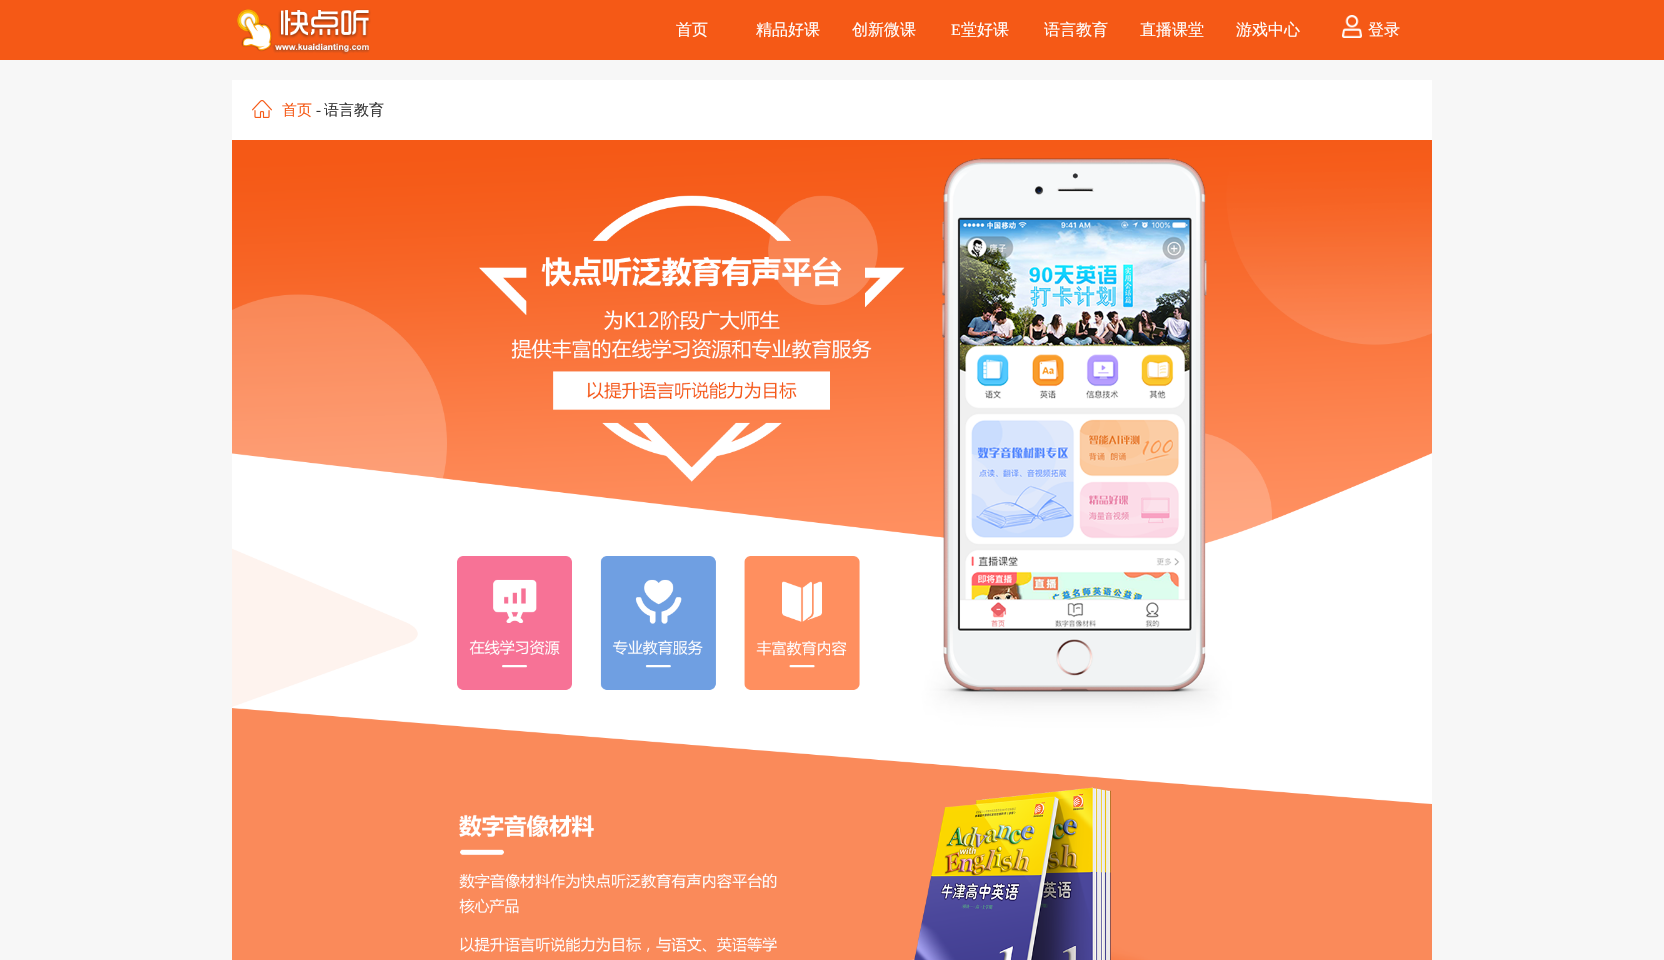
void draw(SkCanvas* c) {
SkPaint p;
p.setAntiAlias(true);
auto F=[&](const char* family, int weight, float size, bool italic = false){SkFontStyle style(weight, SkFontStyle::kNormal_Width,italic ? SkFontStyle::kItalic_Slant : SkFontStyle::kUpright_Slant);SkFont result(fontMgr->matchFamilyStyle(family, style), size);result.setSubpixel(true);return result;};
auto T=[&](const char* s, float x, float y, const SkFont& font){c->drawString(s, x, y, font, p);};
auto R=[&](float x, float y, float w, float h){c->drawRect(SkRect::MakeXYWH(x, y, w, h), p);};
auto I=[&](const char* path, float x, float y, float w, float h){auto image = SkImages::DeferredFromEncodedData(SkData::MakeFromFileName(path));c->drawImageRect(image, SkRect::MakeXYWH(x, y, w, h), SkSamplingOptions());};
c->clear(0xfff7f7f7);
p.setColor(0xfff55916);
R(0,0,1664,60);
I("1.png",237,9,134,46);
auto f1 = F("WenQuanYi Zen Hei",500,16);
p.setColor(0xffffffff);
T("首页",676,35,f1);
T("精品好课",756,35,f1);
T("创新微课",852,35,f1);
auto f2 = F("Liberation Serif",400,16);
T("E",951,35,f2);
T("堂好课",961,35,f1);
T("语言教育",1044,35,f1);
T("直播课堂",1140,35,f1);
T("游戏中心",1236,35,f1);
I("2.png",1342,15,20,23);
T("登录",1368,35,f1);
R(232,80,1200,60);
I("3.png",252,100,20,18);
auto f3 = F("WenQuanYi Zen Hei",500,15);
p.setColor(0xfff55916);
T("首页",282,115,f3);
auto f4 = F("Liberation Serif",400,15);
p.setColor(0xff333333);
T("-",316,115,f4);
T("语言教育",324,115,f3);
I("4.png",232,140,1200,568);
I("5.png",232,708,1200,252);
}
